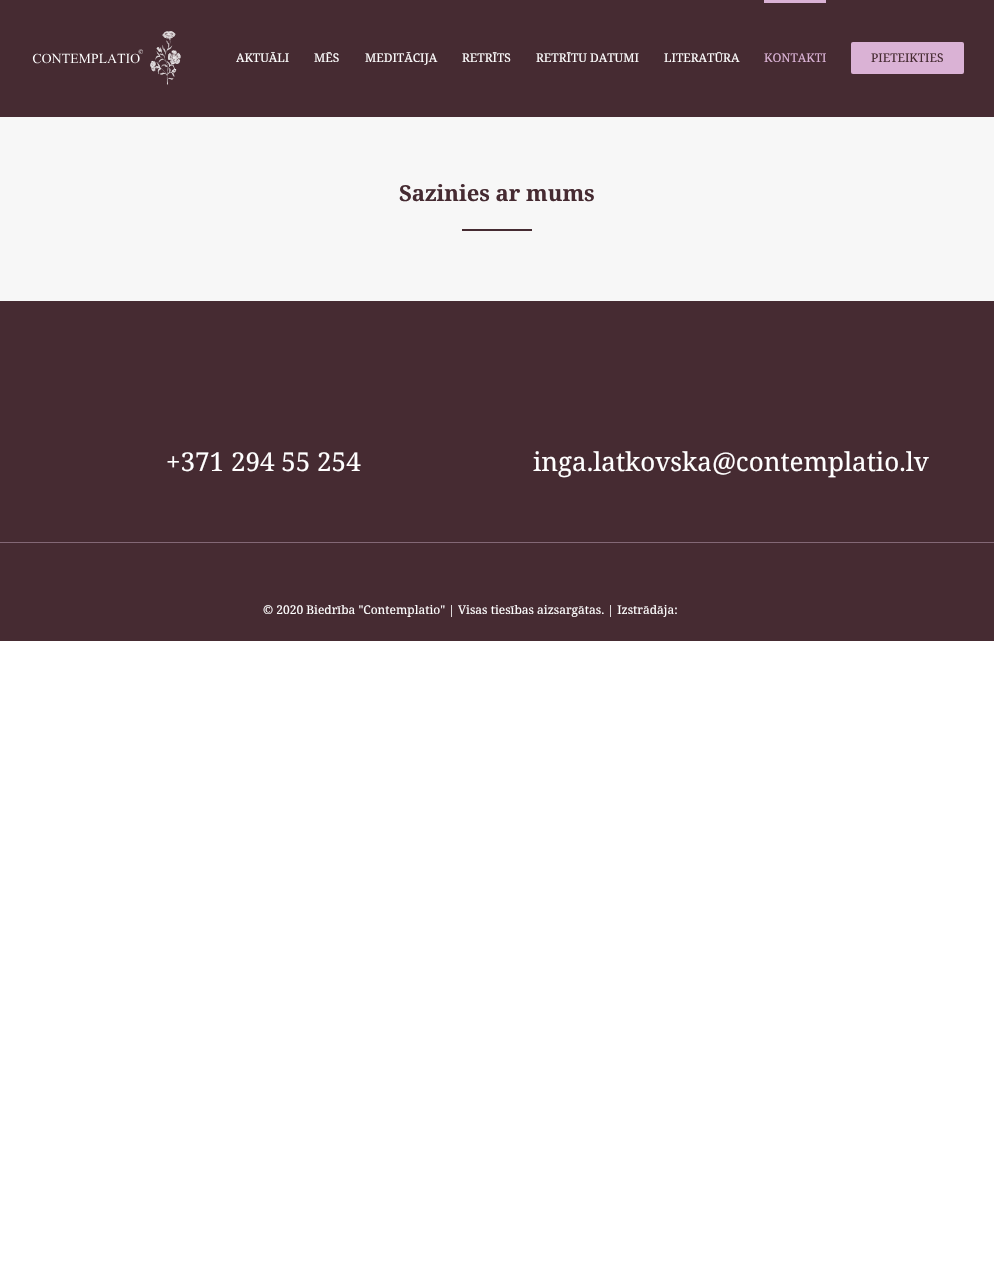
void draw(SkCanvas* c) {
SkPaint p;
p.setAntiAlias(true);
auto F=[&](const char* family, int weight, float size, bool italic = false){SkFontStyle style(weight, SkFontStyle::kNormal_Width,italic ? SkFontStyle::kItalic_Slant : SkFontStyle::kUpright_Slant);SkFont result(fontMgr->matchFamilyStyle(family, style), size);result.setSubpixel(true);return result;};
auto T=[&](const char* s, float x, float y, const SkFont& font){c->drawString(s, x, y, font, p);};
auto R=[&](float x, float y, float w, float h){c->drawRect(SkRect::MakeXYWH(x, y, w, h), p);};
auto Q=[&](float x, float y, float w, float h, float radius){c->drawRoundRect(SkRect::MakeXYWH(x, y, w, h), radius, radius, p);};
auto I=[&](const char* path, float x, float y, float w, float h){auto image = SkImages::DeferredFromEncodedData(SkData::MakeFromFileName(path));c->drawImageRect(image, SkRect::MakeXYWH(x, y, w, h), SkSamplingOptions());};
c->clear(0xffffffff);
p.setColor(0xfff7f7f7);
R(0,117,994,184);
p.setColor(0xff462b32);
R(0,0,994,117);
I("1.png",32,31,149,54);
auto f1 = F("Noto Serif",400,12);
p.setColor(0xffffffff);
T("AKTUĀLI",236,62,f1);
T("MĒS",314,62,f1);
T("MEDITĀCIJA",365,62,f1);
T("RETRĪTS",462,62,f1);
T("RETRĪTU DATUMI",536,62,f1);
T("LITERATŪRA",664,62,f1);
p.setColor(0xffdab2d5);
R(764,0,62,3);
T("KONTAKTI",764,62,f1);
Q(851,42,113,32,2);
p.setColor(0xff462b32);
T("PIETEIKTIES",871,62,f1);
auto f2 = F("Noto Serif",700,22);
T("Sazinies ar mums",399,201,f2);
R(462,229,70,2);
R(0,301,994,241);
auto f3 = F("Noto Serif",400,26);
p.setColor(0xffffffff);
T("+371 294 55 254",166,471,f3);
T("inga.latkovska@contemplatio.lv",533,471,f3);
p.setColor(0xff462b32);
R(0,543,994,98);
p.setColor(0xff836876);
R(0,542,994,1);
p.setColor(0xffffffff);
T("© 2020 Biedrība \"Contemplatio\" | Visas tiesības aizsargātas. | Izstrādāja:",263,614,f1);
}
